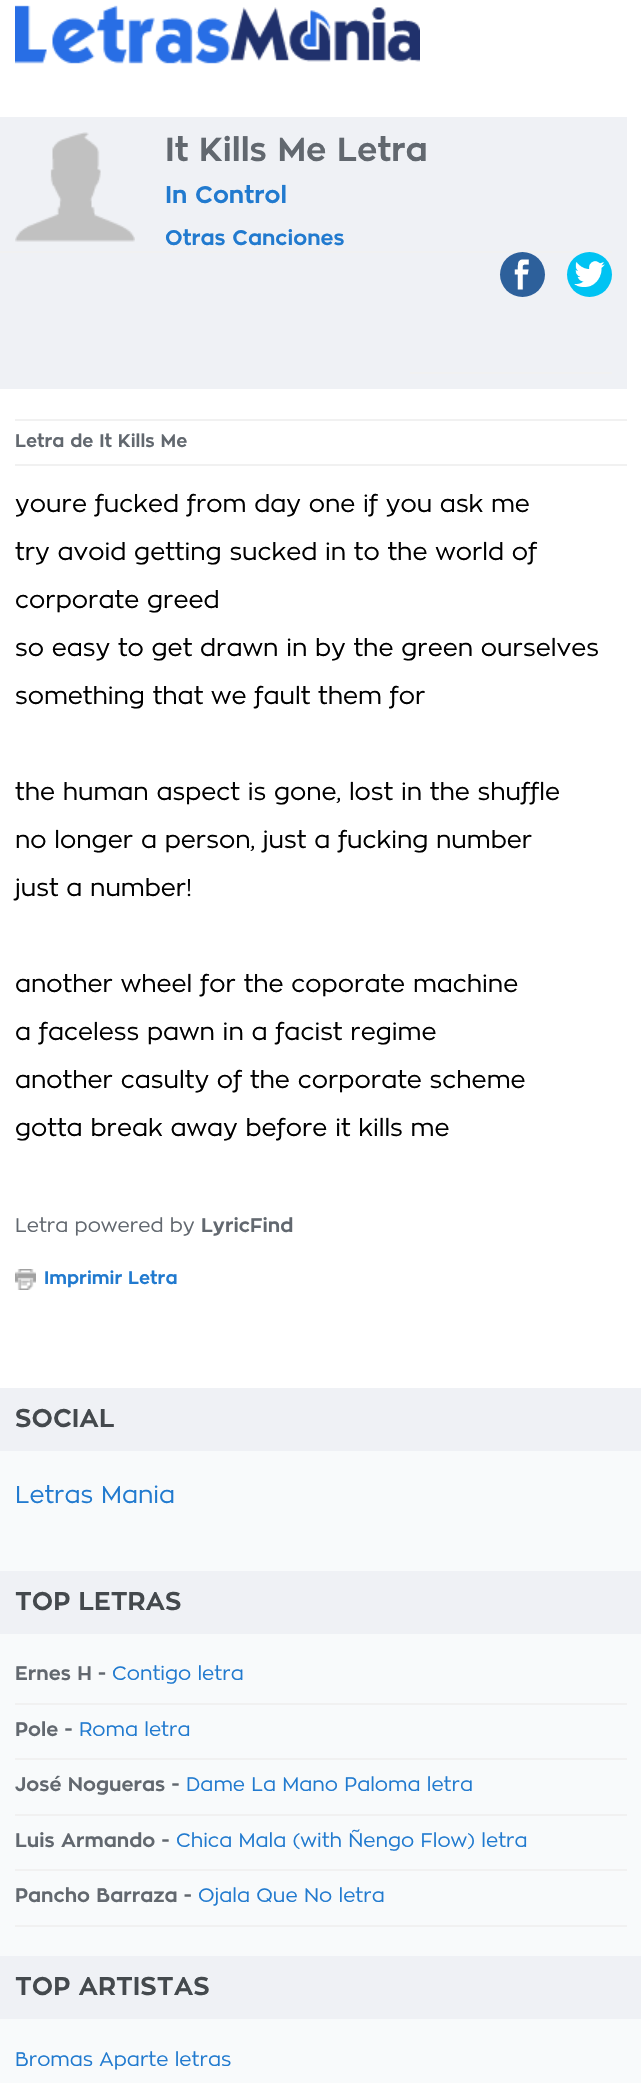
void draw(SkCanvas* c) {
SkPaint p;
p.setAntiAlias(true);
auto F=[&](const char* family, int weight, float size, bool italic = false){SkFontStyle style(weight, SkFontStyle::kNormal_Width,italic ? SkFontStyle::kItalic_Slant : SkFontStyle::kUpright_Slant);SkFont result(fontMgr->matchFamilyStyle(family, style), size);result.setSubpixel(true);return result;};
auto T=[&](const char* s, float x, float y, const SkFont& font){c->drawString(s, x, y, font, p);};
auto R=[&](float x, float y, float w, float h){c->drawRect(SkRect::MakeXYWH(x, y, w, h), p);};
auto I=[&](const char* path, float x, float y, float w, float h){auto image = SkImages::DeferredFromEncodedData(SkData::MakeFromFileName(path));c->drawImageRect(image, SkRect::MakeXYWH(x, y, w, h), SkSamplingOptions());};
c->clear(0xffffffff);
I("1.png",15,5,405,59);
p.setColor(0xffeff1f5);
R(0,117,627,272);
I("2.png",15,132,120,110);
p.setColor(0xfff1f1f1);
R(0,251,612,2);
auto f1 = F("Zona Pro",700,33);
p.setColor(0xff62686f);
T("It Kills Me Letra",165,161,f1);
auto f2 = F("Zona Pro",700,24);
p.setColor(0xff217acf);
T("In Control",165,203,f2);
auto f3 = F("Zona Pro",700,21);
T("Otras Canciones",165,245,f3);
p.setColor(0xfff1f1f1);
R(410,372,202,2);
p.setColor(0xff2d609b);
c->drawCircle(522.5,274.5,22.5,p);
I("3.png",514,259,15,31);
p.setColor(0xff00c3f3);
c->drawCircle(589.5,274.5,22.5,p);
I("4.png",574,261,31,26);
p.setColor(0xfff1f1f1);
R(15,419,612,2);
R(15,464,612,2);
auto f4 = F("Zona Pro",700,18);
p.setColor(0xff62686f);
T("Letra de It Kills Me",15,447,f4);
auto f5 = F("Zona Pro",400,24);
p.setColor(0xff000000);
T("youre fucked from day one if you ask me",15,512,f5);
T("try avoid getting sucked in to the world of",15,560,f5);
T("corporate greed",15,608,f5);
T("so easy to get drawn in by the green ourselves",15,656,f5);
T("something that we fault them for",15,704,f5);
T("the human aspect is gone, lost in the shuffle",15,800,f5);
T("no longer a person, just a fucking number",15,848,f5);
T("just a number!",15,896,f5);
T("another wheel for the coporate machine",15,992,f5);
T("a faceless pawn in a facist regime",15,1040,f5);
T("another casulty of the corporate scheme",15,1088,f5);
T("gotta break away before it kills me",15,1136,f5);
auto f6 = F("Zona Pro",400,19.5);
p.setColor(0xff62686f);
T("Letra powered by",15,1232,f6);
auto f7 = F("Zona Pro",700,19.5);
T("LyricFind",201,1232,f7);
I("5.png",15,1269,21,21);
p.setColor(0xff217acf);
T("Imprimir Letra",44,1284,f4);
p.setColor(0xfff8fafb);
R(0,1451,641,632);
p.setColor(0xffeff1f5);
R(0,1388,641,63);
auto f8 = F("Zona Pro",700,25.5);
p.setColor(0xff44494d);
T("SOCIAL",15,1427,f8);
p.setColor(0xff217acf);
T("Letras Mania",15,1503,f5);
p.setColor(0xffeff1f5);
R(0,1571,641,63);
p.setColor(0xff44494d);
T("TOP LETRAS",15,1610,f8);
p.setColor(0xfff1f1f1);
R(15,1703,612,2);
p.setColor(0xff62686f);
T("Ernes H -",15,1680,f7);
p.setColor(0xff217acf);
T("Contigo letra",112,1680,f6);
p.setColor(0xfff1f1f1);
R(15,1758,612,2);
p.setColor(0xff62686f);
T("Pole -",15,1736,f7);
p.setColor(0xff217acf);
T("Roma letra",79,1736,f6);
p.setColor(0xfff1f1f1);
R(15,1814,612,2);
p.setColor(0xff62686f);
T("José Nogueras -",15,1791,f7);
p.setColor(0xff217acf);
T("Dame La Mano Paloma letra",186,1791,f6);
p.setColor(0xfff1f1f1);
R(15,1869,612,2);
p.setColor(0xff62686f);
T("Luis Armando -",15,1847,f7);
p.setColor(0xff217acf);
T("Chica Mala (with Ñengo Flow) letra",176,1847,f6);
p.setColor(0xfff1f1f1);
R(15,1925,612,2);
p.setColor(0xff62686f);
T("Pancho Barraza -",15,1902,f7);
p.setColor(0xff217acf);
T("Ojala Que No letra",198,1902,f6);
p.setColor(0xffeff1f5);
R(0,1956,641,63);
p.setColor(0xff44494d);
T("TOP ARTISTAS",15,1995,f8);
p.setColor(0xff217acf);
T("Bromas Aparte letras",15,2066,f6);
}
